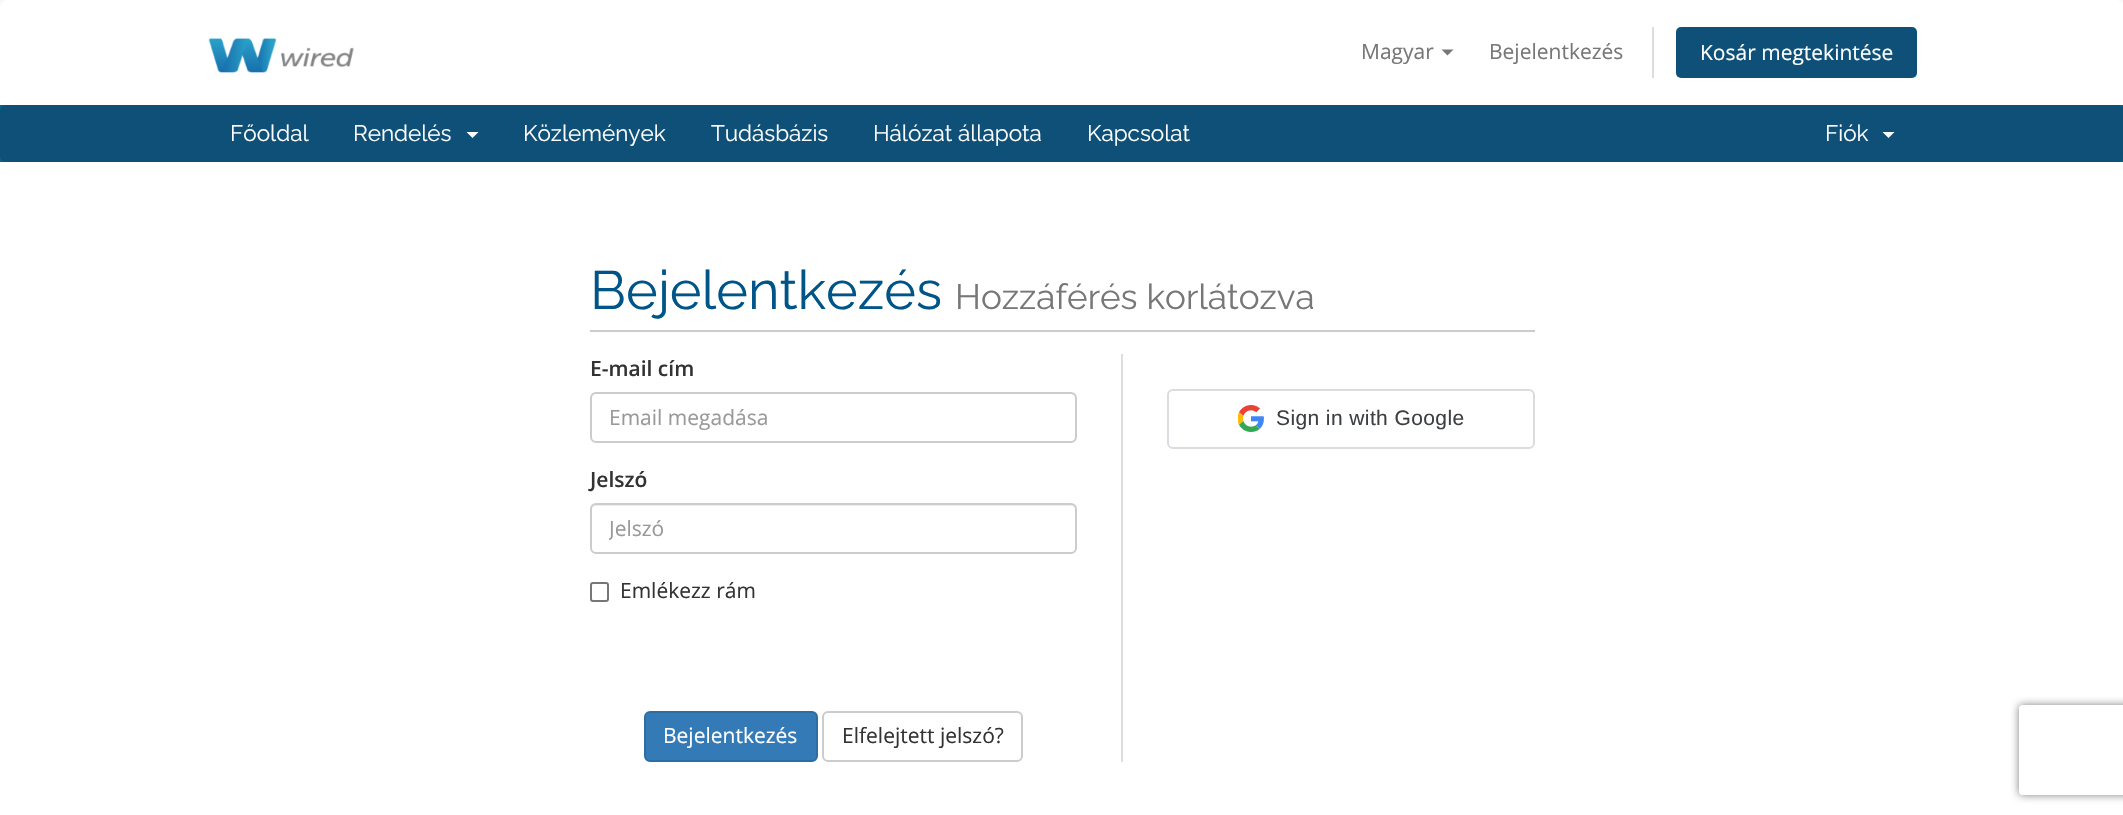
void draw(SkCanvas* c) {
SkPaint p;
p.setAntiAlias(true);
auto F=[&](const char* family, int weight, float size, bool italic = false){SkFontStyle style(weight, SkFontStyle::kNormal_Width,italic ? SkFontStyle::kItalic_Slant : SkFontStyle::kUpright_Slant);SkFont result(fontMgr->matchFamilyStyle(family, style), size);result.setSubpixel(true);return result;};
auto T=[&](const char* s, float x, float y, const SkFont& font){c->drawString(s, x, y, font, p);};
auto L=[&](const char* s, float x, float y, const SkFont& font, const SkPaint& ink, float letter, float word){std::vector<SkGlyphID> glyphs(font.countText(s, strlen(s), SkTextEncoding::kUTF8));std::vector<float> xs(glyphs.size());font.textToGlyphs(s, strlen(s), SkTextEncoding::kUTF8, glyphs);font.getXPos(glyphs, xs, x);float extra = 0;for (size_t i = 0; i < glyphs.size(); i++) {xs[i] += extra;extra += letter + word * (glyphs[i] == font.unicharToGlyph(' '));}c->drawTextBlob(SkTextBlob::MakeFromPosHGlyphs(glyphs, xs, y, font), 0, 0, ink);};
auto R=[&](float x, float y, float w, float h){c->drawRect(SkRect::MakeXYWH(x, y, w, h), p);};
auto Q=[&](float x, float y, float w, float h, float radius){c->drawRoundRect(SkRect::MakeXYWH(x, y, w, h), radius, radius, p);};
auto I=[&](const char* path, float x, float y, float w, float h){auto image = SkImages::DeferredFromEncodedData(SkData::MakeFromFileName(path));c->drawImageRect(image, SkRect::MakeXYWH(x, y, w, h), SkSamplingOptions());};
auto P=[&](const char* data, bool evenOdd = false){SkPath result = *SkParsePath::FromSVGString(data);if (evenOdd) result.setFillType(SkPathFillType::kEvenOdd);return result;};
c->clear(0xfff8f8f8);
p.setColor(0xffffffff);
c->drawPath(P("M8 0h2108c4.5 0 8 3.5 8 8v97h-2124v-97c0-4.5 3.5-8 8-8z"),p);
I("1.png",208,37,146,36);
auto f1 = F("Open Sans",400,21);
p.setColor(0xff777777);
T("Magyar",1361,59,f1);
c->drawPath(P("M1441.5 49.5h12l-6 6z"),p);
T("Bejelentkezés",1489,59,f1);
p.setColor(0xffdddddd);
R(1652,27,2,51);
p.setColor(0xff0e5077);
Q(1676,27,241,51,5);
p.setColor(0xffffffff);
T("Kosár megtekintése",1700,60,f1);
p.setColor(0xff006687);
R(0,105,2123,57);
p.setColor(0xff0e5077);
Q(0,105,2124,57,6);
auto f2 = F("Raleway",400,22.5);
p.setColor(0xffffffff);
T("Főoldal",230,141,f2);
T("Rendelés",353,141,f2);
c->drawPath(P("M466.5 132h12l-6 6z"),p);
T("Közlemények",523,141,f2);
T("Tudásbázis",711,141,f2);
T("Hálózat állapota",873,141,f2);
T("Kapcsolat",1087,141,f2);
T("Fiók",1825,141,f2);
c->drawPath(P("M1882.5 132h12l-6 6z"),p);
R(0,162,2123,653);
p.setColor(0xffcccccc);
R(590,330,945,2);
auto f3 = F("Raleway",400,54);
p.setColor(0xff005588);
T("Bejelentkezés",590,309,f3);
auto f4 = F("Raleway",400,35.1);
p.setColor(0xff777777);
T("Hozzáférés korlátozva",955,309,f4);
p.setColor(0xffdddddd);
R(1121,354,2,408);
auto f5 = F("Open Sans",600,21);
p.setColor(0xff333333);
T("E-mail cím",590,376,f5);
p.setColor(0xffececec);
c->drawPath(P("M596 394h475c2 0 5 3 5 5v-1c0-3-2-5-5-5h-475c-3 0-5 2-5 5v1c0-2 2-5 5-5z"),p);
p.setStroke(true);
p.setStrokeWidth(2);
p.setColor(0xffcccccc);
c->drawRoundRect(SkRect::MakeXYWH(591,393,485,49),5,5,p);
p.setStroke(false);
p.setColor(0xff999999);
T("Email megadása",609,425,f1);
p.setColor(0xff333333);
T("Jelszó",590,487,f5);
p.setColor(0xffececec);
c->drawPath(P("M596 506h475c2 0 5 2 5 4v-1c0-3-2-5-5-5h-475c-3 0-5 2-5 5v1c0-2 2-4 5-4z"),p);
p.setStroke(true);
p.setColor(0xffcccccc);
c->drawRoundRect(SkRect::MakeXYWH(591,504,485,49),5,5,p);
c->save();
c->clipRect(SkRect::MakeXYWH(609,513,449,29));
p.setStroke(false);
p.setColor(0xff999999);
T("Jelszó",609,536,f1);
c->restore();
p.setStroke(true);
p.setColor(0xff767676);
c->drawRoundRect(SkRect::MakeXYWH(591,583,17,18),2,2,p);
p.setStroke(false);
p.setColor(0xff333333);
T("Emlékezz rám",620,598,f1);
p.setColor(0xff337ab7);
c->drawRoundRect(SkRect::MakeXYWH(645,712,172,49),5,5,p);
p.setStroke(true);
p.setColor(0xff2e6da4);
c->drawRoundRect(SkRect::MakeXYWH(645,712,172,49),5,5,p);
p.setStroke(false);
p.setColor(0xffffffff);
T("Bejelentkezés",663,743,f1);
p.setStroke(true);
p.setColor(0xffcccccc);
c->drawRoundRect(SkRect::MakeXYWH(823,712,199,49),5,5,p);
p.setStroke(false);
p.setColor(0xff333333);
T("Elfelejtett jelszó?",842,743,f1);
c->save();
c->clipPath(P("M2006 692h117v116h-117zm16 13h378c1.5 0 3 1.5 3 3v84c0 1.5-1.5 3-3 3h-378c-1.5 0-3-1.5-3-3v-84c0-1.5 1.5-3 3-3z",true),true);
p.setColor(0xff808080);
p.setMaskFilter(SkMaskFilter::MakeBlur(kNormal_SkBlurStyle, 4));
c->drawRoundRect(SkRect::MakeXYWH(2019,705,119,90),3,3,p);
p.setMaskFilter(nullptr);
c->restore();
p.setStroke(true);
p.setColor(0xffdadce0);
c->drawRoundRect(SkRect::MakeXYWH(1168,390,366,58),5,5,p);
I("2.png",1238,405,26,27);
auto f6 = F("Liberation Sans",400,21);
p.setStroke(false);
p.setColor(0xff3c4043);
L("Sign in with Google",1276,425,f6,p,.4,0);
}
